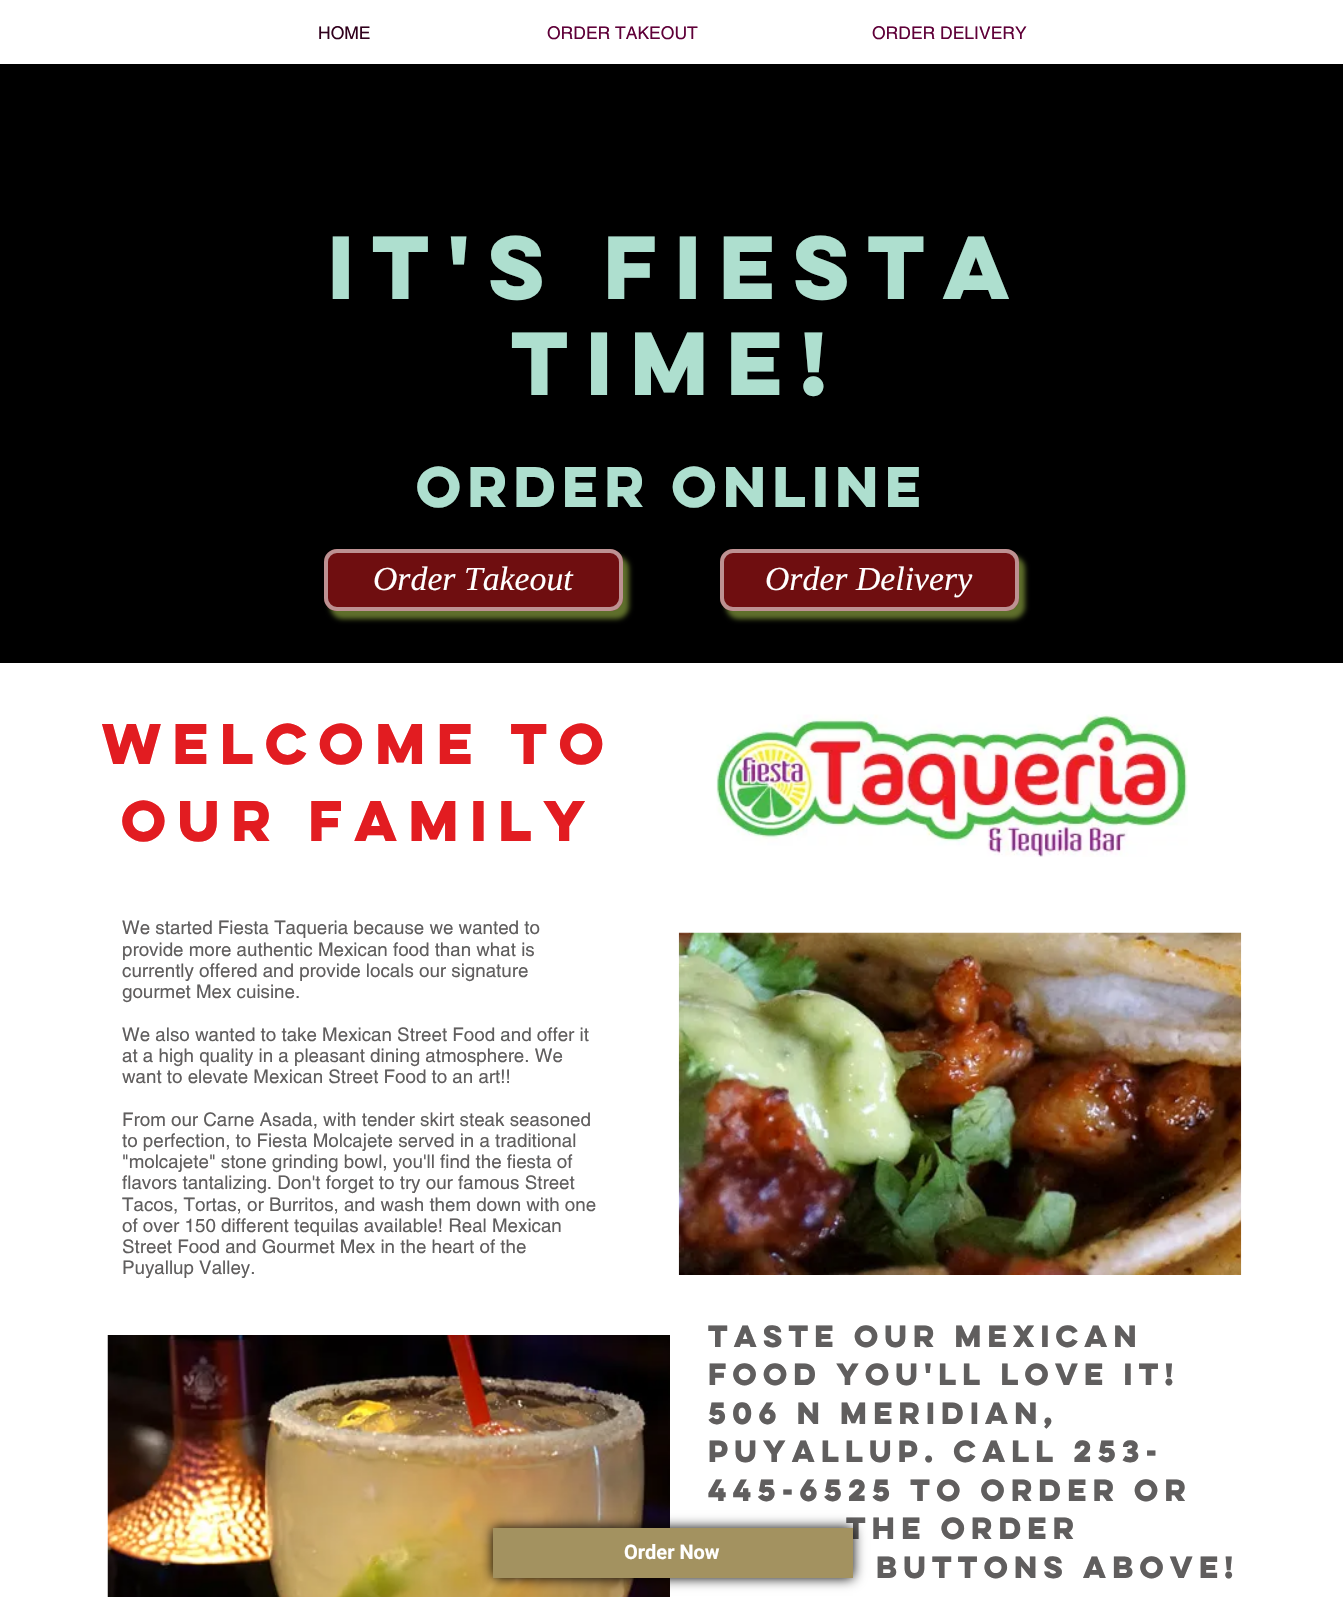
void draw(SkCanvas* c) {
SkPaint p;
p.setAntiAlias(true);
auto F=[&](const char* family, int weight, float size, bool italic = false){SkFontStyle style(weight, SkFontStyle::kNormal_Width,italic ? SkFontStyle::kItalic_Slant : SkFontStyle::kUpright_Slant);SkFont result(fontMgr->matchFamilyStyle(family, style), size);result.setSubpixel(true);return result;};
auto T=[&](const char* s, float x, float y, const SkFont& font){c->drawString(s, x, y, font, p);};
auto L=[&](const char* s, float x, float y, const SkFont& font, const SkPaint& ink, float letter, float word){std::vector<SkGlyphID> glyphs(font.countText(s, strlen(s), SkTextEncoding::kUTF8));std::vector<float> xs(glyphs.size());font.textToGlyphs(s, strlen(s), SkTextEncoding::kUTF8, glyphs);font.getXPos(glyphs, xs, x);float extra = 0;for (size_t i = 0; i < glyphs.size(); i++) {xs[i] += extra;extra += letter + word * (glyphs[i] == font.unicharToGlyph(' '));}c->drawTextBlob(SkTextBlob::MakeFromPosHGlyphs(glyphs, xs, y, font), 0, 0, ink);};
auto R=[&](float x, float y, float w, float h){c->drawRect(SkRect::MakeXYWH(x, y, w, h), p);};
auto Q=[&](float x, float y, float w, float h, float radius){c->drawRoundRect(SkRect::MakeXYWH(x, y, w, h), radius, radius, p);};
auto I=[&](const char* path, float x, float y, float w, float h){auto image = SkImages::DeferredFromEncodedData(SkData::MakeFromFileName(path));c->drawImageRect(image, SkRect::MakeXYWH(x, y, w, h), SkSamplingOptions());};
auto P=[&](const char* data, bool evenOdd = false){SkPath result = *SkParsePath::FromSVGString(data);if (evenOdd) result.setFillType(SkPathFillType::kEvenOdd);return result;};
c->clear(0xffffffff);
p.setColor(0xff000000);
R(0,64,1343,599);
c->save();
c->clipPath(P("M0 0h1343v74h-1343zm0 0h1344v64h-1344z",true),true);
p.setColor(0xb3000000);
p.setMaskFilter(SkMaskFilter::MakeBlur(kNormal_SkBlurStyle, 3));
c->drawRect(SkRect::MakeXYWH(0,0,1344,64),p);
p.setMaskFilter(nullptr);
c->restore();
p.setColor(0x99ffffff);
R(0,63,1343,1);
auto f1 = F("helvetica",400,17.5);
p.setColor(0xff30001c);
T("HOME",318,39,f1);
p.setColor(0xff5f0038);
T("ORDER TAKEOUT",547,39,f1);
T("ORDER DELIVERY",872,39,f1);
auto f2 = F("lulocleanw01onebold",700,80);
p.setColor(0xffaedfcf);
T("IT's FIESTA",328,299,f2);
T("TIME!",511,395,f2);
auto f3 = F("lulocleanw01onebold",700,51.25);
L("Order online",416,507,f3,p,-5.1,0);
c->save();
c->clipPath(P("M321 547h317v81h-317zm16 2h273c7 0 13 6 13 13v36c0 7-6 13-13 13h-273c-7 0-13-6-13-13v-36c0-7 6-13 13-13z",true),true);
p.setColor(0x82bada55);
p.setMaskFilter(SkMaskFilter::MakeBlur(kNormal_SkBlurStyle, 2.5));
c->drawRoundRect(SkRect::MakeXYWH(330,556,299,63),13,13,p);
p.setMaskFilter(nullptr);
c->restore();
p.setColor(0x7de21c21);
Q(324,549,299,62,13);
p.setStroke(true);
p.setStrokeWidth(4);
p.setColor(0x8affffff);
c->drawRoundRect(SkRect::MakeXYWH(326,551,295,58),11,11,p);
auto f4 = F("Liberation Serif",400,33.75,true);
p.setStroke(false);
p.setColor(0xffffffff);
T("Order Takeout",373,590,f4);
c->save();
c->clipPath(P("M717 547h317v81h-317zm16 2h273c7 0 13 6 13 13v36c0 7-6 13-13 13h-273c-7 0-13-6-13-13v-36c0-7 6-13 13-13z",true),true);
p.setColor(0x82bada55);
p.setMaskFilter(SkMaskFilter::MakeBlur(kNormal_SkBlurStyle, 2.5));
c->drawRoundRect(SkRect::MakeXYWH(726,556,299,63),13,13,p);
p.setMaskFilter(nullptr);
c->restore();
p.setColor(0x7de21c21);
Q(720,549,299,62,13);
p.setStroke(true);
p.setColor(0x8affffff);
c->drawRoundRect(SkRect::MakeXYWH(722,551,295,58),11,11,p);
p.setStroke(false);
p.setColor(0xffffffff);
T("Order Delivery",765,590,f4);
p.setColor(0xffe21c21);
T("Welcome to",102,764,f3);
T("our Family",121,841,f3);
I("1.png",716,714,472,143);
auto f5 = F("helvetica",400,18.75);
p.setColor(0xff605e5e);
T("We started Fiesta Taqueria because we wanted to",122,934,f5);
T("provide more authentic Mexican food than what is",122,956,f5);
T("currently offered and provide locals our signature",122,977,f5);
T("gourmet Mex cuisine.",122,998,f5);
T("We also wanted to take Mexican Street Food and offer it",122,1041,f5);
T("at a high quality in a pleasant dining atmosphere. We",122,1062,f5);
T("want to elevate Mexican Street Food to an art!!",122,1083,f5);
T("From our Carne Asada, with tender skirt steak seasoned",122,1126,f5);
T("to perfection, to Fiesta Molcajete served in a traditional",122,1147,f5);
T("\"molcajete\" stone grinding bowl, you'll find the fiesta of",122,1168,f5);
T("flavors tantalizing. Don't forget to try our famous Street",122,1189,f5);
T("Tacos, Tortas, or Burritos, and wash them down with one",122,1211,f5);
T("of over 150 different tequilas available! Real Mexican",122,1232,f5);
T("Street Food and Gourmet Mex in the heart of the",122,1253,f5);
T("Puyallup Valley.",122,1274,f5);
I("2.png",678,932,564,343);
I("3.png",107,1335,563,262);
auto f6 = F("lulocleanw01onebold",700,27.5);
T("Taste our Mexican",708,1347,f6);
T("food you'll love it!",708,1385,f6);
T("506 N Meridian,",708,1424,f6);
T("Puyallup. Call 253-",708,1462,f6);
T("445-6525 to order or",708,1501,f6);
T("the Order",846,1539,f6);
T("Buttons above!",876,1578,f6);
p.setColor(0xff000000);
p.setMaskFilter(SkMaskFilter::MakeBlur(kNormal_SkBlurStyle, 6));
c->drawRect(SkRect::MakeXYWH(493,1528,360,50),p);
p.setMaskFilter(nullptr);
p.setColor(0xffa39260);
R(493,1528,360,50);
auto f7 = F("Roboto",700,20);
p.setColor(0xffffffff);
T("Order Now",624,1559,f7);
}
